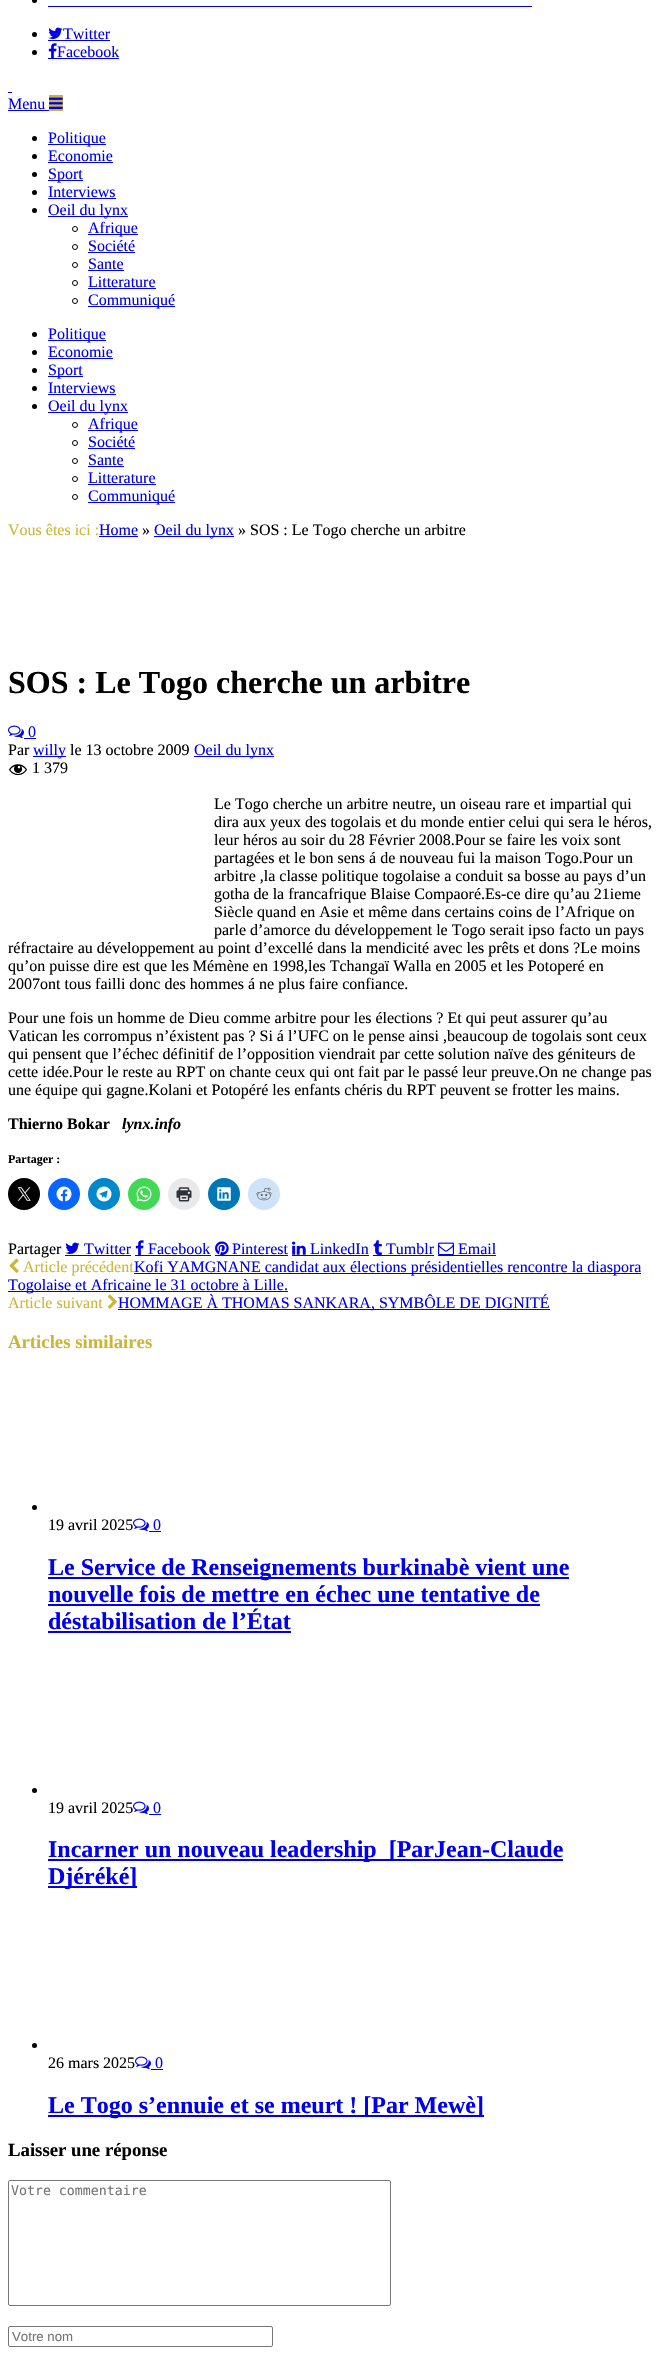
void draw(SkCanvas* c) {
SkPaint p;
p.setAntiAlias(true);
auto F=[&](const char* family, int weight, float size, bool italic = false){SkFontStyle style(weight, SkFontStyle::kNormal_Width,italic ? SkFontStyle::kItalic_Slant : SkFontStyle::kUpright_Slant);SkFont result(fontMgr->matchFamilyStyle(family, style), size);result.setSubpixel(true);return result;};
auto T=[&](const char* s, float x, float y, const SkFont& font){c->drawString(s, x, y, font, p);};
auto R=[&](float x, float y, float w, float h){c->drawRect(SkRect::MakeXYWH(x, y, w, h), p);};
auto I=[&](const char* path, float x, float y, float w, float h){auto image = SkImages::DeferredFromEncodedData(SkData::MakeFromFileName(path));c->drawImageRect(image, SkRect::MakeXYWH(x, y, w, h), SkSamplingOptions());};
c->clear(0xffffffff);
p.setColor(0xff000000);
c->drawCircle(34.5,.5,2.5,p);
p.setColor(0xff0000ee);
R(48,6,484,1);
p.setColor(0xff000000);
c->drawCircle(34.5,34.5,2.5,p);
I("1.png",48,27,15,12);
auto f1 = F("Liberation Serif",400,16);
p.setColor(0xff0000ee);
T("Twitter",63,39,f1);
R(48,40,62,1);
p.setColor(0xff000000);
c->drawCircle(34.5,52.5,2.5,p);
I("2.png",48,43,9,15);
p.setColor(0xff0000ee);
T("Facebook",57,57,f1);
R(48,58,71,1);
R(8,92,4,1);
T("Menu",8,109,f1);
R(8,110,41,1);
p.setColor(0xffccb537);
R(49,95,14,16);
I("3.png",49,97,14,12);
p.setColor(0xff000000);
c->drawCircle(34.5,138.5,2.5,p);
p.setColor(0xff0000ee);
R(48,144,58,1);
T("Politique",48,143,f1);
p.setColor(0xff000000);
c->drawCircle(34.5,156.5,2.5,p);
p.setColor(0xff0000ee);
T("Economie",48,161,f1);
R(48,162,65,1);
p.setColor(0xff000000);
c->drawCircle(34.5,174.5,2.5,p);
p.setColor(0xff0000ee);
R(48,180,35,1);
T("Sport",48,179,f1);
p.setColor(0xff000000);
c->drawCircle(34.5,192.5,2.5,p);
p.setColor(0xff0000ee);
T("Interviews",48,197,f1);
R(48,198,68,1);
p.setColor(0xff000000);
c->drawCircle(34.5,210.5,2.5,p);
p.setColor(0xff0000ee);
R(48,216,80,1);
T("Oeil du lynx",48,215,f1);
p.setStroke(true);
p.setStrokeWidth(1);
p.setColor(0xff000000);
c->drawCircle(75,229,2.5,p);
p.setStroke(false);
p.setColor(0xff0000ee);
R(88,234,50,1);
T("Afrique",88,233,f1);
p.setStroke(true);
p.setColor(0xff000000);
c->drawCircle(75,247,2.5,p);
p.setStroke(false);
p.setColor(0xff0000ee);
T("Société",88,251,f1);
R(88,252,47,1);
p.setStroke(true);
p.setColor(0xff000000);
c->drawCircle(75,265,2.5,p);
p.setStroke(false);
p.setColor(0xff0000ee);
T("Sante",88,269,f1);
R(88,270,36,1);
p.setStroke(true);
p.setColor(0xff000000);
c->drawCircle(75,283,2.5,p);
p.setStroke(false);
p.setColor(0xff0000ee);
T("Litterature",88,287,f1);
R(88,288,68,1);
p.setStroke(true);
p.setColor(0xff000000);
c->drawCircle(75,301,2.5,p);
p.setStroke(false);
p.setColor(0xff0000ee);
R(88,306,87,1);
T("Communiqué",88,305,f1);
p.setColor(0xff000000);
c->drawCircle(34.5,334.5,2.5,p);
p.setColor(0xff0000ee);
R(48,340,58,1);
T("Politique",48,339,f1);
p.setColor(0xff000000);
c->drawCircle(34.5,352.5,2.5,p);
p.setColor(0xff0000ee);
T("Economie",48,357,f1);
R(48,358,65,1);
p.setColor(0xff000000);
c->drawCircle(34.5,370.5,2.5,p);
p.setColor(0xff0000ee);
R(48,376,35,1);
T("Sport",48,375,f1);
p.setColor(0xff000000);
c->drawCircle(34.5,388.5,2.5,p);
p.setColor(0xff0000ee);
T("Interviews",48,393,f1);
R(48,394,68,1);
p.setColor(0xff000000);
c->drawCircle(34.5,406.5,2.5,p);
p.setColor(0xff0000ee);
R(48,412,80,1);
T("Oeil du lynx",48,411,f1);
p.setStroke(true);
p.setColor(0xff000000);
c->drawCircle(75,425,2.5,p);
p.setStroke(false);
p.setColor(0xff0000ee);
R(88,430,50,1);
T("Afrique",88,429,f1);
p.setStroke(true);
p.setColor(0xff000000);
c->drawCircle(75,443,2.5,p);
p.setStroke(false);
p.setColor(0xff0000ee);
T("Société",88,447,f1);
R(88,448,47,1);
p.setStroke(true);
p.setColor(0xff000000);
c->drawCircle(75,461,2.5,p);
p.setStroke(false);
p.setColor(0xff0000ee);
T("Sante",88,465,f1);
R(88,466,36,1);
p.setStroke(true);
p.setColor(0xff000000);
c->drawCircle(75,479,2.5,p);
p.setStroke(false);
p.setColor(0xff0000ee);
T("Litterature",88,483,f1);
R(88,484,68,1);
p.setStroke(true);
p.setColor(0xff000000);
c->drawCircle(75,497,2.5,p);
p.setStroke(false);
p.setColor(0xff0000ee);
R(88,502,87,1);
T("Communiqué",88,501,f1);
p.setColor(0xffccb537);
T("Vous êtes ici :",8,535,f1);
p.setColor(0xff0000ee);
T("Home",99,535,f1);
R(99,536,39,1);
p.setColor(0xff000000);
T("»",142,535,f1);
p.setColor(0xff0000ee);
R(154,536,80,1);
T("Oeil du lynx",154,535,f1);
p.setColor(0xff000000);
T("» SOS : Le Togo cherche un arbitre",238,535,f1);
auto f2 = F("Liberation Serif",700,32);
T("SOS : Le Togo cherche un arbitre",8,693,f2);
I("4.png",8,725,16,14);
p.setColor(0xff0000ee);
T("0",28,737,f1);
R(24,738,12,1);
p.setColor(0xff000000);
T("Par",8,755,f1);
p.setColor(0xff0000ee);
R(33,756,33,1);
T("willy",33,755,f1);
p.setColor(0xff000000);
T("le 13 octobre 2009",70,755,f1);
p.setColor(0xff0000ee);
R(194,756,80,1);
T("Oeil du lynx",194,755,f1);
I("5.png",9,764,18,12);
p.setColor(0xff000000);
T("1 379",32,773,f1);
T("Le Togo cherche un arbitre neutre, un oiseau rare et impartial qui",214,809,f1);
T("dira aux yeux des togolais et du monde entier celui qui sera le héros,",214,827,f1);
T("leur héros au soir du 28 Février 2008.Pour se faire les voix sont",214,845,f1);
T("partagées et le bon sens á de nouveau fui la maison Togo.Pour un",214,863,f1);
T("arbitre ,la classe politique togolaise a conduit sa bosse au pays d’un",214,881,f1);
T("gotha de la francafrique Blaise Compaoré.Es-ce dire qu’au 21ieme",214,899,f1);
T("Siècle quand en Asie et même dans certains coins de l’Afrique on",214,917,f1);
T("parle d’amorce du développement le Togo serait ipso facto un pays",214,935,f1);
T("réfractaire au développement au point d’excellé dans la mendicité avec les prêts et dons ?Le moins",8,953,f1);
T("qu’on puisse dire est que les Mémène en 1998,les Tchangaï Walla en 2005 et les Potoperé en",8,971,f1);
T("2007ont tous failli donc des hommes á ne plus faire confiance.",8,989,f1);
T("Pour une fois un homme de Dieu comme arbitre pour les élections ? Et qui peut assurer qu’au",8,1023,f1);
T("Vatican les corrompus n’éxistent pas ? Si á l’UFC on le pense ainsi ,beaucoup de togolais sont ceux",8,1041,f1);
T("qui pensent que l’échec définitif de l’opposition viendrait par cette solution naïve des géniteurs de",8,1059,f1);
T("cette idée.Pour le reste au RPT on chante ceux qui ont fait par le passé leur preuve.On ne change pas",8,1077,f1);
T("une équipe qui gagne.Kolani et Potopéré les enfants chéris du RPT peuvent se frotter les mains.",8,1095,f1);
auto f3 = F("Liberation Serif",700,16);
T("Thierno Bokar",8,1129,f3);
auto f4 = F("Liberation Serif",700,16,true);
T("lynx.info",122,1129,f4);
auto f5 = F("Liberation Serif",700,12);
T("Partager :",8,1163,f5);
c->drawCircle(24,1194,16,p);
I("6.png",17,1187,14,14);
p.setColor(0xff0866ff);
c->drawCircle(64,1194,16,p);
I("7.png",56,1186,16,16);
p.setColor(0xff0088cc);
c->drawCircle(104,1194,16,p);
I("8.png",96,1186,16,16);
p.setColor(0xff43d854);
c->drawCircle(144,1194,16,p);
I("9.png",136,1186,16,16);
p.setColor(0xffe9e9e9);
c->drawCircle(184,1194,16,p);
I("10.png",176,1187,16,15);
p.setColor(0xff0077b5);
c->drawCircle(224,1194,16,p);
I("11.png",217,1187,14,14);
p.setColor(0xffcee3f8);
c->drawCircle(264,1194,16,p);
I("12.png",256,1187,16,14);
p.setColor(0xff000000);
T("Partager",8,1254,f1);
I("1.png",65,1242,15,12);
p.setColor(0xff0000ee);
T("Twitter",84,1254,f1);
R(65,1255,66,1);
I("2.png",135,1240,9,15);
T("Facebook",148,1254,f1);
R(135,1255,76,1);
I("13.png",215,1241,14,14);
T("Pinterest",232,1254,f1);
R(215,1255,73,1);
I("14.png",292,1241,14,14);
T("LinkedIn",310,1254,f1);
R(292,1255,77,1);
I("15.png",373,1240,10,15);
T("Tumblr",386,1254,f1);
R(373,1255,61,1);
I("16.png",438,1242,16,13);
T("Email",458,1254,f1);
R(438,1255,58,1);
I("17.png",9,1258,10,15);
p.setColor(0xffccb537);
T("Article précédent",23,1272,f1);
p.setColor(0xff0000ee);
R(134,1273,507,1);
T("Kofi YAMGNANE candidat aux élections présidentielles rencontre la diaspora",134,1272,f1);
R(8,1291,280,1);
T("Togolaise et Africaine le 31 octobre à Lille.",8,1290,f1);
p.setColor(0xffccb537);
T("Article suivant",8,1308,f1);
I("18.png",107,1294,10,15);
p.setColor(0xff0000ee);
R(118,1309,432,1);
T("HOMMAGE À THOMAS SANKARA, SYMBÔLE DE DIGNITÉ",118,1308,f1);
auto f6 = F("Liberation Serif",700,18.75);
p.setColor(0xffccb537);
T("Articles similaires",8,1348,f6);
p.setColor(0xff000000);
c->drawCircle(34.5,1507.5,2.5,p);
T("19 avril 2025",48,1530,f1);
I("4.png",133,1518,16,14);
p.setColor(0xff0000ee);
T("0",153,1530,f1);
R(149,1531,12,1);
R(48,1577,521,2);
auto f7 = F("Liberation Serif",700,24);
T("Le Service de Renseignements burkinabè vient une",48,1575,f7);
T("nouvelle fois de mettre en échec une tentative de",48,1602,f7);
R(48,1604,492,2);
T("déstabilisation de l’État",48,1629,f7);
R(48,1631,243,2);
p.setColor(0xff000000);
c->drawCircle(34.5,1790.5,2.5,p);
T("19 avril 2025",48,1813,f1);
I("4.png",133,1801,16,14);
p.setColor(0xff0000ee);
T("0",153,1813,f1);
R(149,1814,12,1);
R(48,1859,515,2);
T("Incarner un nouveau leadership  [ParJean-Claude",48,1857,f7);
R(48,1886,89,2);
T("Djéréké]",48,1884,f7);
p.setColor(0xff000000);
c->drawCircle(34.5,2045.5,2.5,p);
T("26 mars 2025",48,2068,f1);
I("4.png",135,2056,16,14);
p.setColor(0xff0000ee);
T("0",155,2068,f1);
R(151,2069,12,1);
R(48,2115,436,2);
T("Le Togo s’ennuie et se meurt ! [Par Mewè]",48,2113,f7);
p.setColor(0xff000000);
T("Laisser une réponse",8,2156,f6);
p.setStroke(true);
p.setColor(0xff767676);
c->drawRoundRect(SkRect::MakeXYWH(8.5,2180.5,382,125),1.5,1.5,p);
auto f8 = F("DejaVu Sans Mono",400,13.25);
p.setStroke(false);
p.setColor(0xff757575);
T("Votre commentaire",11,2195,f8);
p.setStroke(true);
p.setColor(0xff767676);
c->drawRoundRect(SkRect::MakeXYWH(8.5,2326.5,264,20),1.5,1.5,p);
auto f9 = F("Liberation Sans",400,13.25);
p.setStroke(false);
p.setColor(0xff757575);
T("Votre nom",12,2341,f9);
}
